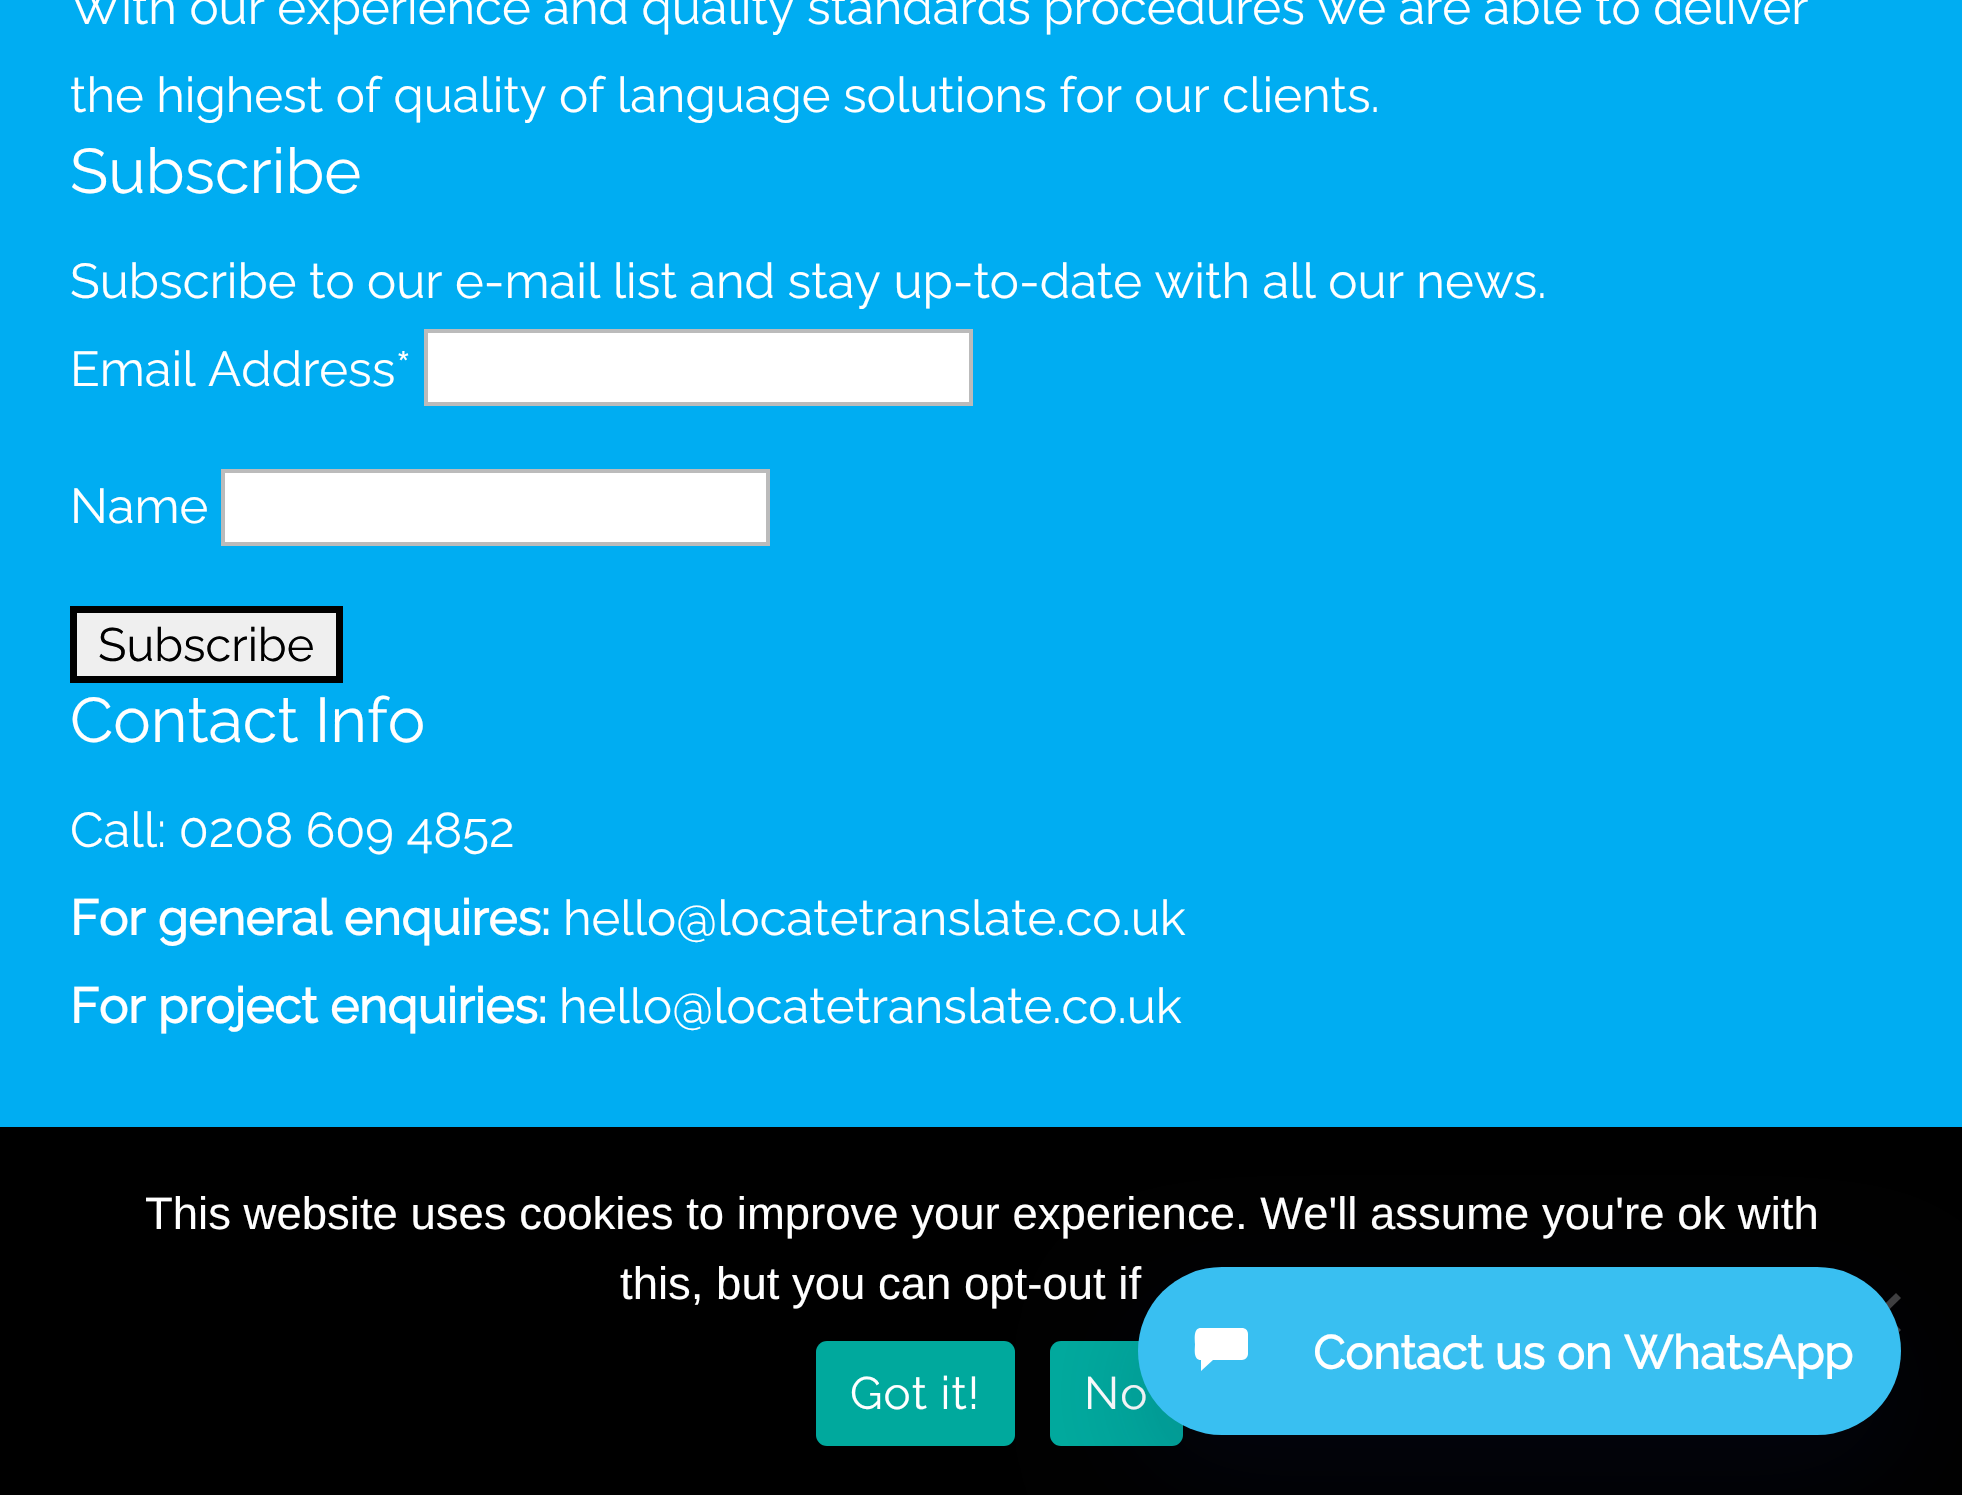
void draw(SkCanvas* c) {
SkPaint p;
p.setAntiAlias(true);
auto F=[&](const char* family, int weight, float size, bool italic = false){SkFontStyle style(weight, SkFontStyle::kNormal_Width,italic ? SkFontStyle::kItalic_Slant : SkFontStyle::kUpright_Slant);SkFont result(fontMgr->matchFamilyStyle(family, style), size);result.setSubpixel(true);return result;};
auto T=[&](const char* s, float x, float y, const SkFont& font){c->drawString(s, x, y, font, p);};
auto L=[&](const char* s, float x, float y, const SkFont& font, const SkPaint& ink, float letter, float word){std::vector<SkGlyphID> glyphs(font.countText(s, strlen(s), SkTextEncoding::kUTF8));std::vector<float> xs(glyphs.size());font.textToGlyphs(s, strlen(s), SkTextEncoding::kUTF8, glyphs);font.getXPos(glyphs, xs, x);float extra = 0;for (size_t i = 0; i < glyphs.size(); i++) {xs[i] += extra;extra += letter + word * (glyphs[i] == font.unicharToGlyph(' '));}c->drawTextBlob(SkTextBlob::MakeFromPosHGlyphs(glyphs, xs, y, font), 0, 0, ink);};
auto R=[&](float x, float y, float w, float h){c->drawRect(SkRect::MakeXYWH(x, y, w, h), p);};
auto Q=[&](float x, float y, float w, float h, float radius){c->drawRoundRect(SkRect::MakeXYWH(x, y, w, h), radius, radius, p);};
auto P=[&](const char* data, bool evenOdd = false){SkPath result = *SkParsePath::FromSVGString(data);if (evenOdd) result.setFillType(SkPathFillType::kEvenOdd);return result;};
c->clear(0xff00adf2);
auto f1 = F("Raleway",100,49);
p.setColor(0xffffffff);
T("With our experience and quality standards procedures we are able to deliver",70,24,f1);
T("the highest of quality of language solutions for our clients.",70,112,f1);
auto f2 = F("Raleway",100,63);
T("Subscribe",70,193,f2);
T("Subscribe to our e-mail list and stay up-to-date with all our news.",70,298,f1);
T("Email Address*",70,386,f1);
c->drawRect(SkRect::MakeXYWH(426,331,545,73),p);
p.setStroke(true);
p.setStrokeWidth(4);
p.setColor(0xffbbbbbb);
c->drawRect(SkRect::MakeXYWH(426,331,545,73),p);
p.setStroke(false);
p.setColor(0xffffffff);
T("Name",70,523,f1);
c->drawRect(SkRect::MakeXYWH(223,471,545,73),p);
p.setStroke(true);
p.setColor(0xffbbbbbb);
c->drawRect(SkRect::MakeXYWH(223,471,545,73),p);
p.setStroke(false);
p.setColor(0xffefefef);
c->drawRect(SkRect::MakeXYWH(73.5,609.5,266,70),p);
p.setStroke(true);
p.setStrokeWidth(7);
p.setColor(0xff000000);
c->drawRect(SkRect::MakeXYWH(73.5,609.5,266,70),p);
auto f3 = F("Raleway",100,46.75);
p.setStroke(false);
T("Subscribe",98,661,f3);
p.setColor(0xffffffff);
T("Contact Info",70,742,f2);
T("Call: 0208 609 4852",70,847,f1);
auto f4 = F("Raleway",700,49);
T("For general enquires:",70,935,f4);
T("hello@locatetranslate.co.uk",563,935,f1);
T("For project enquiries:",70,1023,f4);
T("hello@locatetranslate.co.uk",559,1023,f1);
p.setColor(0xff000000);
R(0,1127,1962,368);
auto f5 = F("Liberation Sans",400,45.5);
p.setColor(0xffffffff);
T("This website uses cookies to improve your experience. We'll assume you're ok with",145,1229,f5);
T("this, but you can opt-out if",620,1299,f5);
p.setColor(0xff404040);
c->drawPath(P("M1896 1293l5 5l-38 37l-5-5z"),p);
c->drawPath(P("M1858 1298l5-5l38 37l-5 5z"),p);
p.setColor(0xff00a99d);
Q(816,1341,199,105,11);
auto f6 = F("Raleway",100,45.5);
p.setColor(0xffffffff);
L("Got it!",850,1409,f6,p,1,0);
p.setColor(0xff00a99d);
Q(1050,1341,133,105,11);
p.setColor(0xffffffff);
L("No",1084,1409,f6,p,1,0);
p.setColor(0x2e091747);
p.setMaskFilter(SkMaskFilter::MakeBlur(kNormal_SkBlurStyle, 56));
c->drawRoundRect(SkRect::MakeXYWH(1138,1309,763,168),84,84,p);
p.setMaskFilter(nullptr);
p.setColor(0xff39bff1);
Q(1138,1267,763,168,84);
p.setColor(0xffffffff);
c->drawPath(P("M1201 1328h41c3 0 6 2 6 6v20c0 3-3 6-6 6h-29l-12 11v-11c-8 0-6-11-6-16c0-5-2-16 6-16z"),p);
auto f7 = F("Raleway",700,46.75);
T("Contact us on WhatsApp",1313,1369,f7);
}
